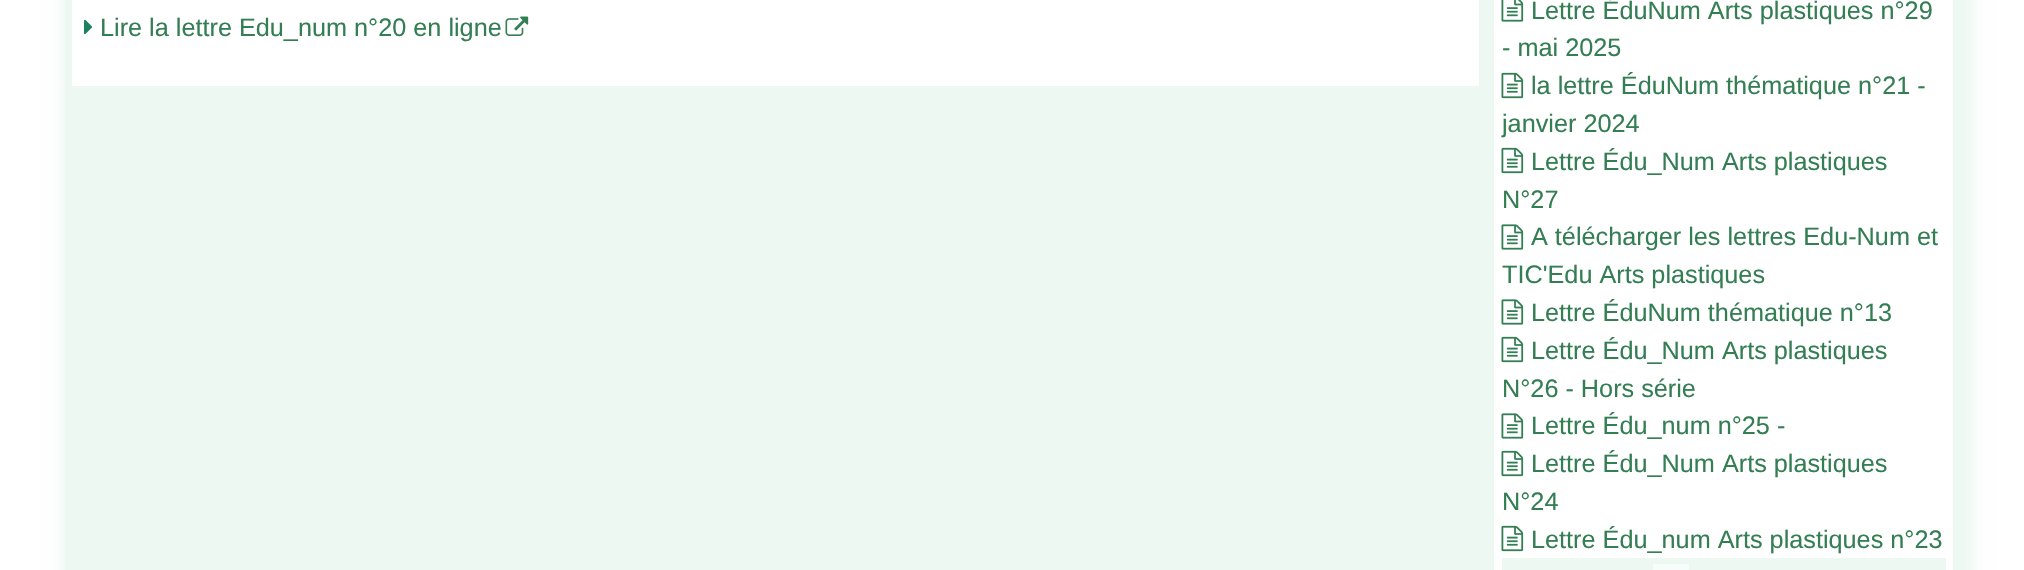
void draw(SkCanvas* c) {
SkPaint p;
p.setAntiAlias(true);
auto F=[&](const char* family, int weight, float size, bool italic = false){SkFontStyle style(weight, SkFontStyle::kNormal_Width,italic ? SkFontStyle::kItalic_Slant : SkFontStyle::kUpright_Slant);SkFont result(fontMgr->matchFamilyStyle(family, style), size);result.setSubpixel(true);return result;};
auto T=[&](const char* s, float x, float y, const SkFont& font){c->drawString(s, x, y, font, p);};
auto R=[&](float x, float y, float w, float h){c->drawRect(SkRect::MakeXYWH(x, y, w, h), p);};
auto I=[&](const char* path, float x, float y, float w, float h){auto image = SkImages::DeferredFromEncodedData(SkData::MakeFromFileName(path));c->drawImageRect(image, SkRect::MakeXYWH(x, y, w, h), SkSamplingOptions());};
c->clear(0xffffffff);
p.setColor(0xffedf8f2);
p.setMaskFilter(SkMaskFilter::MakeBlur(kNormal_SkBlurStyle, 7.5));
c->drawRect(SkRect::MakeXYWH(62,-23,1912,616),p);
p.setMaskFilter(nullptr);
R(65,0,5,570);
p.setColor(0xffffffff);
R(72,0,1407,86);
I("1.png",84,19,8,16);
auto f1 = F("Liberation Sans",400,25.25);
p.setColor(0xff347e54);
T("Lire la lettre Edu_num n°20 en ligne",100,36,f1);
I("2.png",505,16,24,20);
p.setColor(0xffffffff);
R(1494,0,459,570);
I("3.png",1501,0,23,22);
p.setColor(0xff347e54);
T("Lettre ÉduNum Arts plastiques n°29",1531,19,f1);
T("- mai 2025",1502,56,f1);
I("4.png",1501,72,23,27);
T("la lettre ÉduNum thématique n°21 -",1531,94,f1);
T("janvier 2024",1502,132,f1);
I("4.png",1501,147,23,27);
T("Lettre Édu_Num Arts plastiques",1531,170,f1);
T("N°27",1502,208,f1);
I("5.png",1501,224,23,26);
T("A télécharger les lettres Edu-Num et",1531,245,f1);
T("TIC'Edu Arts plastiques",1502,283,f1);
I("5.png",1501,299,23,26);
T("Lettre ÉduNum thématique n°13",1531,321,f1);
I("4.png",1501,336,23,27);
T("Lettre Édu_Num Arts plastiques",1531,359,f1);
T("N°26 - Hors série",1502,397,f1);
I("5.png",1501,413,23,26);
T("Lettre Édu_num n°25 -",1531,434,f1);
I("4.png",1501,450,23,27);
T("Lettre Édu_Num Arts plastiques",1531,472,f1);
T("N°24",1502,510,f1);
I("4.png",1501,525,23,27);
T("Lettre Édu_num Arts plastiques n°23",1531,548,f1);
p.setColor(0xffedf8f2);
R(1502,558,444,12);
p.setColor(0xfff7fdfb);
R(1653,564,36,6);
}
